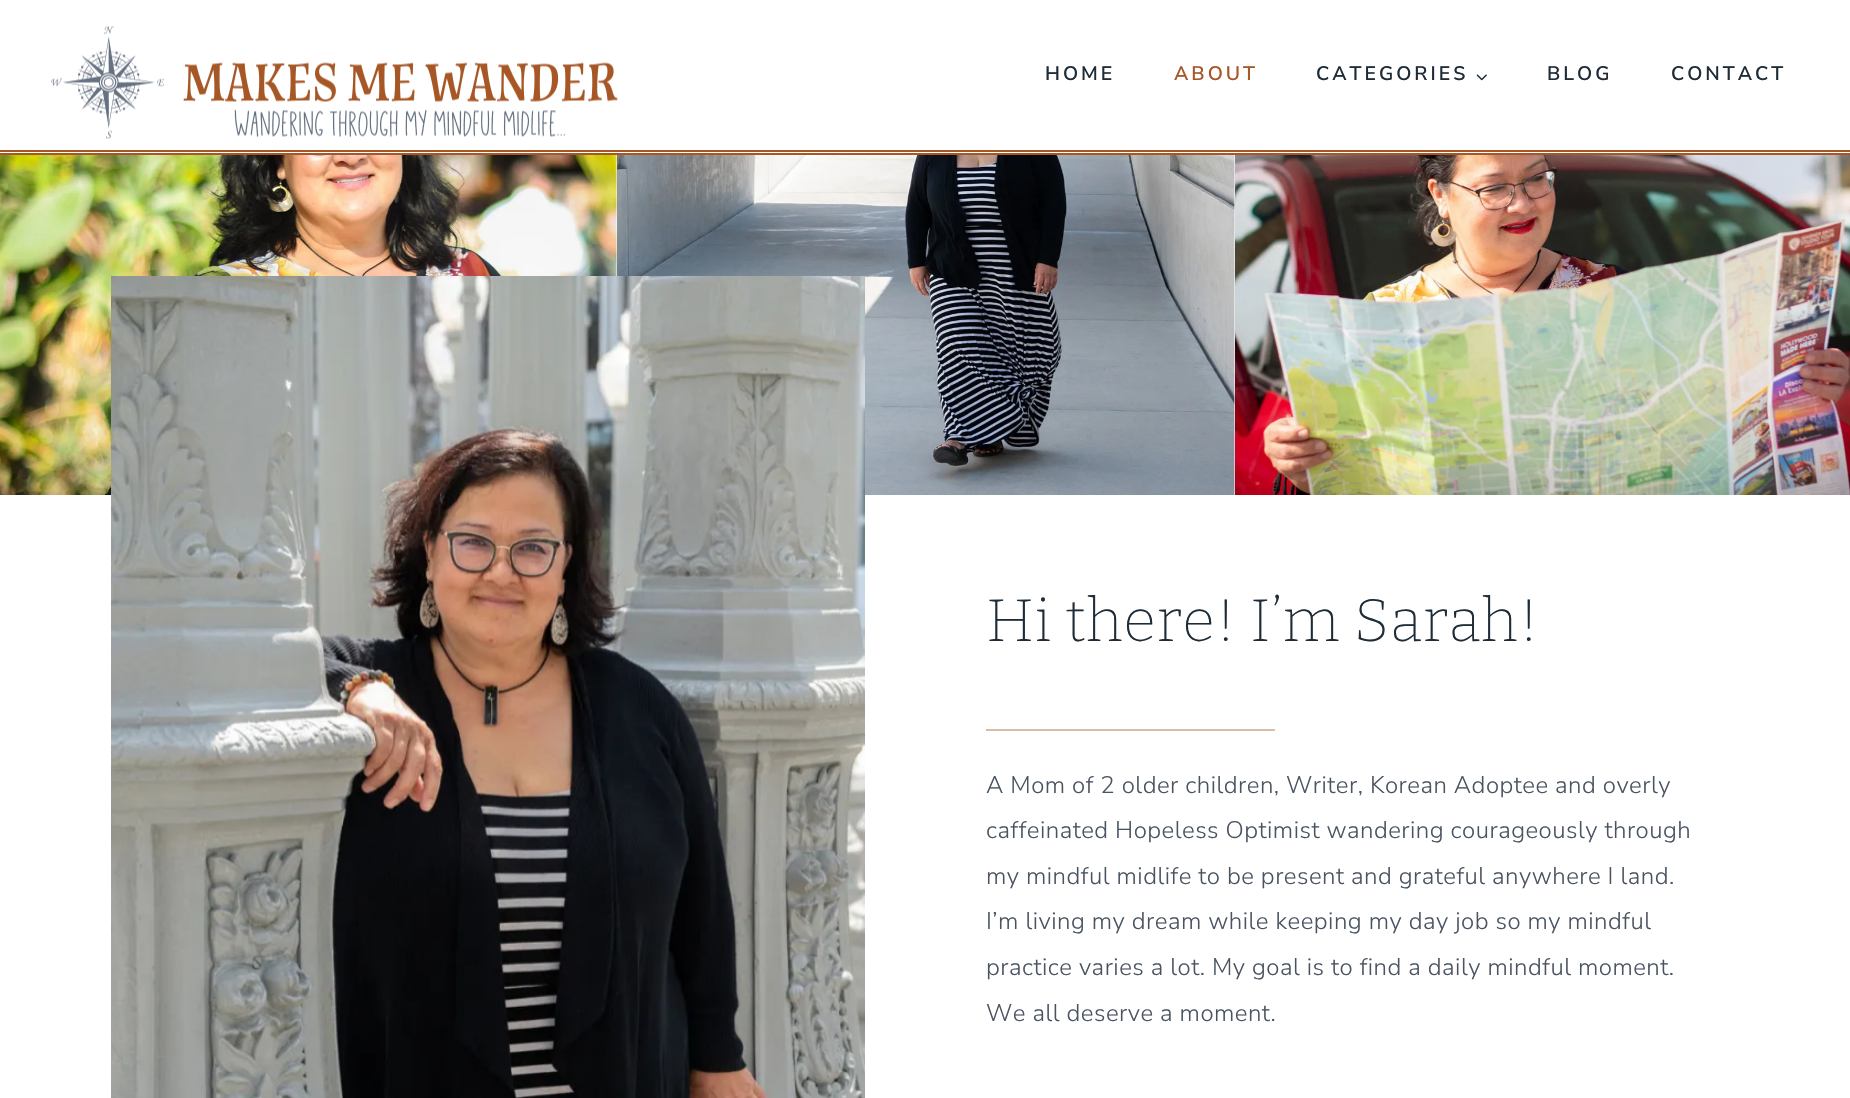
void draw(SkCanvas* c) {
SkPaint p;
p.setAntiAlias(true);
auto F=[&](const char* family, int weight, float size, bool italic = false){SkFontStyle style(weight, SkFontStyle::kNormal_Width,italic ? SkFontStyle::kItalic_Slant : SkFontStyle::kUpright_Slant);SkFont result(fontMgr->matchFamilyStyle(family, style), size);result.setSubpixel(true);return result;};
auto L=[&](const char* s, float x, float y, const SkFont& font, const SkPaint& ink, float letter, float word){std::vector<SkGlyphID> glyphs(font.countText(s, strlen(s), SkTextEncoding::kUTF8));std::vector<float> xs(glyphs.size());font.textToGlyphs(s, strlen(s), SkTextEncoding::kUTF8, glyphs);font.getXPos(glyphs, xs, x);float extra = 0;for (size_t i = 0; i < glyphs.size(); i++) {xs[i] += extra;extra += letter + word * (glyphs[i] == font.unicharToGlyph(' '));}c->drawTextBlob(SkTextBlob::MakeFromPosHGlyphs(glyphs, xs, y, font), 0, 0, ink);};
auto R=[&](float x, float y, float w, float h){c->drawRect(SkRect::MakeXYWH(x, y, w, h), p);};
auto I=[&](const char* path, float x, float y, float w, float h){auto image = SkImages::DeferredFromEncodedData(SkData::MakeFromFileName(path));c->drawImageRect(image, SkRect::MakeXYWH(x, y, w, h), SkSamplingOptions());};
c->clear(0xffffffff);
p.setColor(0xffa75726);
R(0,150,1850,2);
R(0,153,1850,2);
I("1.png",51,26,567,113);
auto f1 = F("Nunito Sans",600,19.5);
p.setColor(0xff1e2c38);
L("HOME",1045,80,f1,p,3,0);
p.setColor(0xffa75726);
L("ABOUT",1174,80,f1,p,3,0);
p.setColor(0xff1e2c38);
L("CATEGORIES",1316,80,f1,p,3,0);
I("2.png",1476,74,11,7);
L("BLOG",1547,80,f1,p,3,0);
L("CONTACT",1671,80,f1,p,3,0);
I("3.png",0,155,617,340);
I("4.png",617,155,618,340);
I("5.png",1235,155,615,340);
I("6.png",111,276,754,822);
auto f2 = F("Bitter",200,60);
L("Hi there! I’m Sarah!",986,641,f2,p,.48,0);
p.setColor(0xffd8bca3);
R(986,729,289,2);
auto f3 = F("Nunito Sans",300,24);
p.setColor(0xff4a5461);
L("A Mom of 2 older children, Writer, Korean Adoptee and overly",986,793,f3,p,.48,0);
L("caffeinated Hopeless Optimist wandering courageously through",986,838,f3,p,.48,0);
L("my mindful midlife to be present and grateful anywhere I land.",986,884,f3,p,.48,0);
L("I’m living my dream while keeping my day job so my mindful",986,929,f3,p,.48,0);
L("practice varies a lot. My goal is to find a daily mindful moment.",986,975,f3,p,.48,0);
L("We all deserve a moment.",986,1021,f3,p,.48,0);
}
